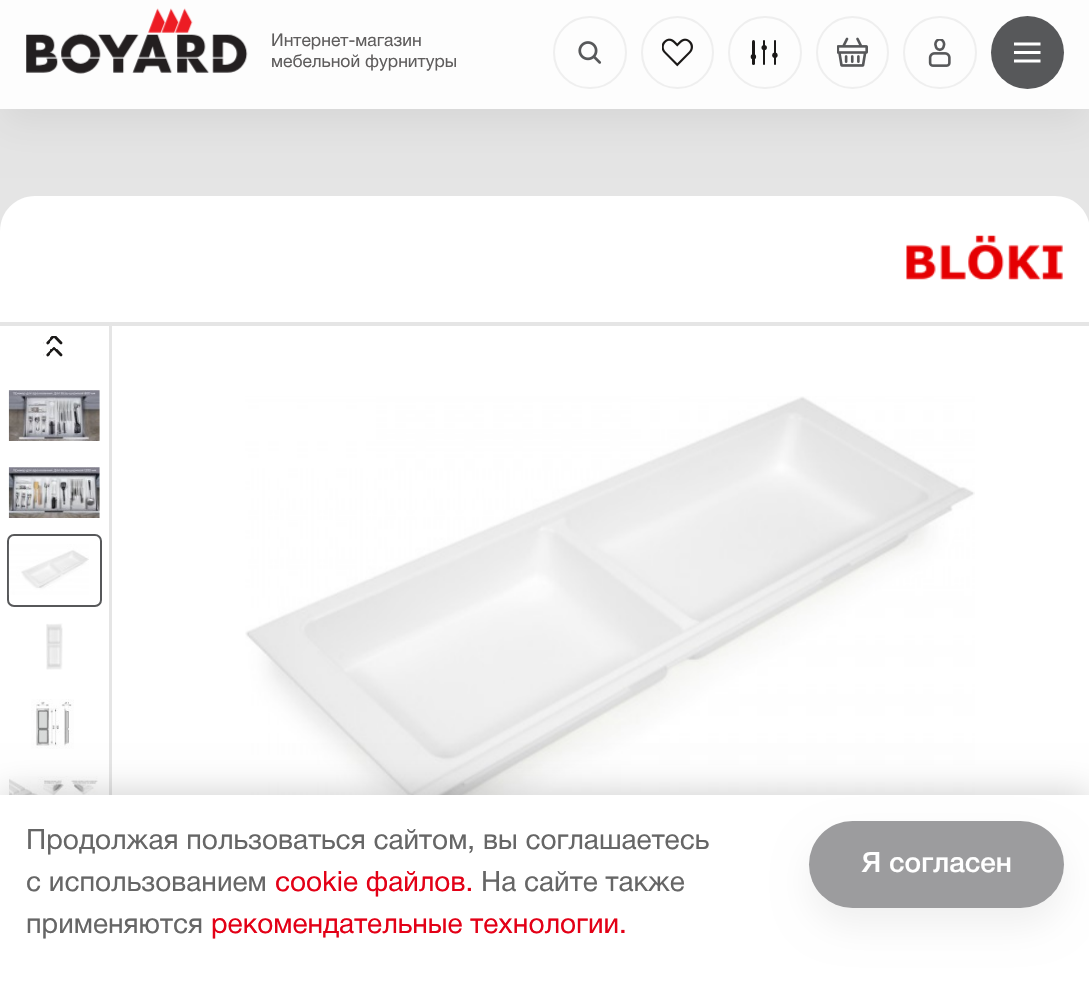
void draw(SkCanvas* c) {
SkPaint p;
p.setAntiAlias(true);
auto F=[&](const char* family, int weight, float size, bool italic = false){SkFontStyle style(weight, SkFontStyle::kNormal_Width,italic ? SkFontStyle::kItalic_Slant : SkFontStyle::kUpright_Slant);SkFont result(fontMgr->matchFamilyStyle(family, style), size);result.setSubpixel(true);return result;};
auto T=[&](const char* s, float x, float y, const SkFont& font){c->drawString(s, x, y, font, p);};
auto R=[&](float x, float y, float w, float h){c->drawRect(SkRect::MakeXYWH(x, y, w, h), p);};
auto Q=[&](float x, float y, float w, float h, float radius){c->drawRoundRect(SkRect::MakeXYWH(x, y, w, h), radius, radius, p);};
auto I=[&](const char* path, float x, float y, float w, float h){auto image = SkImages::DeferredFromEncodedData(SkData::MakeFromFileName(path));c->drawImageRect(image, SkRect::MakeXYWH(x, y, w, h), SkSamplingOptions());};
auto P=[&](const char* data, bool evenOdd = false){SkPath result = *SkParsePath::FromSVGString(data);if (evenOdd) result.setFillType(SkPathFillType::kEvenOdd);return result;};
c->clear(0xffe5e5e5);
p.setColor(0x0f000000);
p.setMaskFilter(SkMaskFilter::MakeBlur(kNormal_SkBlurStyle, 17.5));
c->drawRect(SkRect::MakeXYWH(0,0,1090,126),p);
p.setMaskFilter(nullptr);
p.setColor(0xfffdfdfd);
R(0,0,1089,109);
I("1.png",26,8,222,66);
auto f1 = F("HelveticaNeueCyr",400,17.5);
p.setColor(0xff5f5d5d);
T("Интернет-магазин",271,46,f1);
T("мебельной фурнитуры",271,67,f1);
p.setStroke(true);
p.setStrokeWidth(2);
p.setColor(0xffefefef);
c->drawRoundRect(SkRect::MakeXYWH(554,17,72,71),35.5,35.5,p);
I("2.png",578,41,24,23);
c->drawCircle(677.5,52.5,35.5,p);
I("3.png",662,38,31,29);
c->drawRoundRect(SkRect::MakeXYWH(729,17,72,71),35.5,35.5,p);
p.setStroke(false);
p.setColor(0xff1b1918);
Q(752,40,3,25,1.5);
Q(774,40,2,25,1);
Q(763,40,2,25,1);
c->drawCircle(764.2,47.6,2.7,p);
c->drawCircle(774.9,55.2,2.7,p);
c->drawCircle(753.4,56.7,2.7,p);
p.setStroke(true);
p.setColor(0xffefefef);
c->drawCircle(852.5,52.5,35.5,p);
I("4.png",837,37,31,30);
c->drawRoundRect(SkRect::MakeXYWH(904,17,72,71),35.5,35.5,p);
I("5.png",928,39,23,28);
p.setStroke(false);
p.setColor(0xff57585a);
c->drawCircle(1027.5,52.5,36.5,p);
p.setStroke(true);
p.setStrokeWidth(2.9);
p.setColor(0xffffffff);
c->drawPath(P("M1014 52.5h26.5m-26.5-8.5h26.5m-26.5 17h26.5"),p);
p.setStroke(false);
c->drawPath(P("M35 196h1020c19.5 0 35 15.5 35 35v91h-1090v-91c0-19.5 15.5-35 35-35z"),p);
I("6.png",906,235,157,45);
R(0,326,109,469);
I("7.png",43,336,20,21);
I("8.png",8,390,92,51);
I("9.png",8,467,92,51);
p.setStroke(true);
p.setStrokeWidth(2);
p.setColor(0xff57585a);
c->drawRoundRect(SkRect::MakeXYWH(8,535,93,71),6,6,p);
I("10.png",8,544,81,51);
I("11.png",46,623,17,47);
I("12.png",31,699,43,50);
I("13.png",9,776,89,19);
p.setStroke(false);
p.setColor(0xffffffff);
R(112,326,977,469);
I("14.png",245,396,730,399);
p.setColor(0x33000000);
p.setMaskFilter(SkMaskFilter::MakeBlur(kNormal_SkBlurStyle, 17.5));
c->drawRect(SkRect::MakeXYWH(0,795,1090,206),p);
p.setMaskFilter(nullptr);
p.setColor(0xffffffff);
R(0,795,1089,205);
auto f2 = F("HelveticaNeueCyr",400,28);
p.setColor(0xff666666);
T("Продолжая пользоваться сайтом, вы соглашаетесь",26,849,f2);
T("с использованием",26,891,f2);
p.setColor(0xffe30016);
T("cookie файлов.",275,891,f2);
p.setColor(0xff666666);
T("На сайте также",481,891,f2);
T("применяются",26,933,f2);
p.setColor(0xffe30016);
T("рекомендательные технологии.",211,933,f2);
p.setColor(0x0f000000);
p.setMaskFilter(SkMaskFilter::MakeBlur(kNormal_SkBlurStyle, 17.5));
c->drawRoundRect(SkRect::MakeXYWH(809,838,255,88),44,44,p);
p.setMaskFilter(nullptr);
p.setColor(0xff9c9c9e);
Q(809,821,255,87,43.5);
auto f3 = F("HelveticaNeueCyr",500,28);
p.setColor(0xffffffff);
T("Я согласен",862,872,f3);
}
